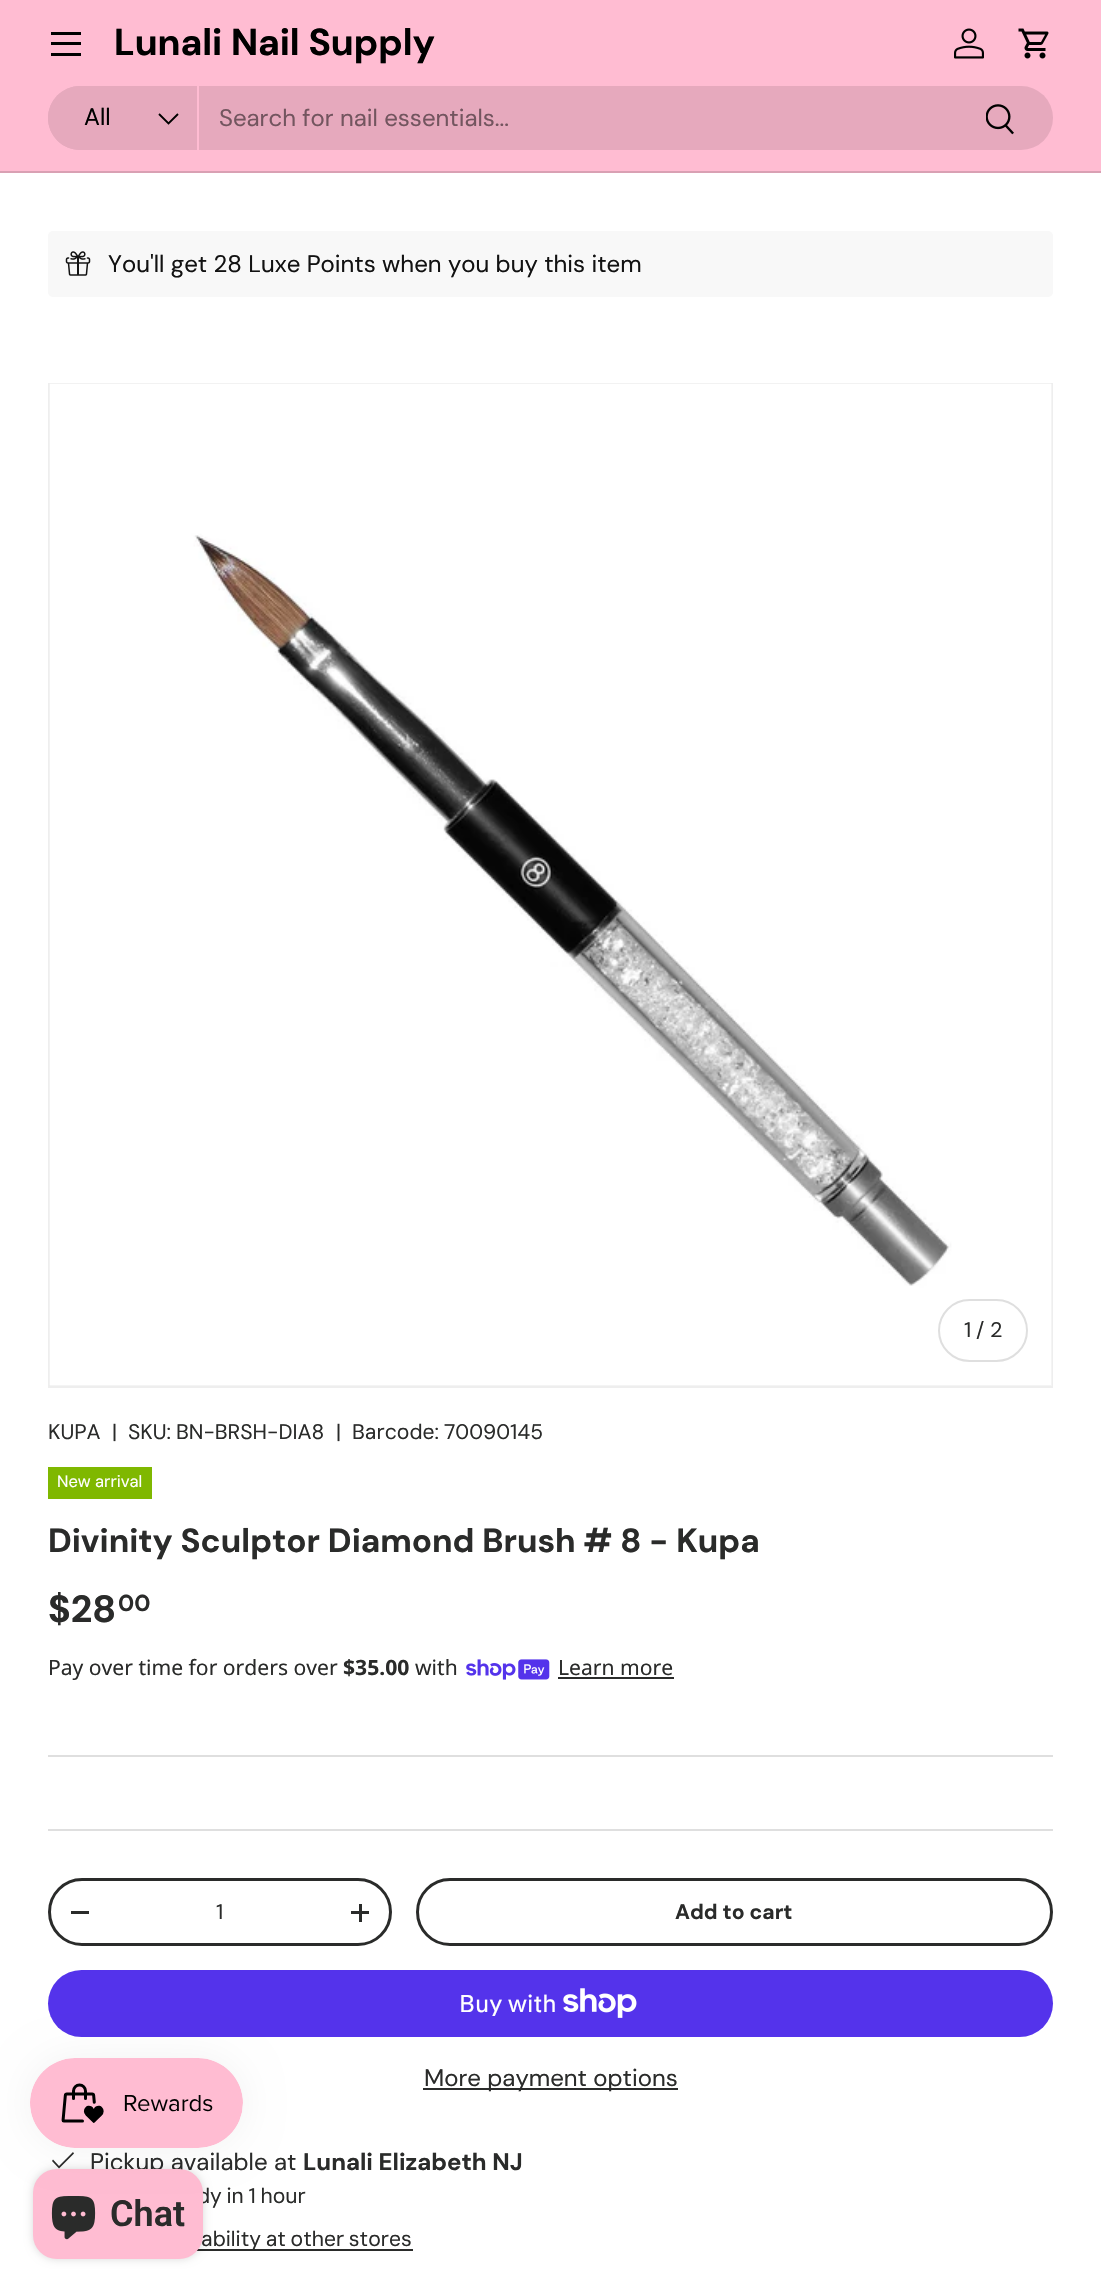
void draw(SkCanvas* c) {
SkPaint p;
p.setAntiAlias(true);
auto F=[&](const char* family, int weight, float size, bool italic = false){SkFontStyle style(weight, SkFontStyle::kNormal_Width,italic ? SkFontStyle::kItalic_Slant : SkFontStyle::kUpright_Slant);SkFont result(fontMgr->matchFamilyStyle(family, style), size);result.setSubpixel(true);return result;};
auto T=[&](const char* s, float x, float y, const SkFont& font){c->drawString(s, x, y, font, p);};
auto L=[&](const char* s, float x, float y, const SkFont& font, const SkPaint& ink, float letter, float word){std::vector<SkGlyphID> glyphs(font.countText(s, strlen(s), SkTextEncoding::kUTF8));std::vector<float> xs(glyphs.size());font.textToGlyphs(s, strlen(s), SkTextEncoding::kUTF8, glyphs);font.getXPos(glyphs, xs, x);float extra = 0;for (size_t i = 0; i < glyphs.size(); i++) {xs[i] += extra;extra += letter + word * (glyphs[i] == font.unicharToGlyph(' '));}c->drawTextBlob(SkTextBlob::MakeFromPosHGlyphs(glyphs, xs, y, font), 0, 0, ink);};
auto R=[&](float x, float y, float w, float h){c->drawRect(SkRect::MakeXYWH(x, y, w, h), p);};
auto Q=[&](float x, float y, float w, float h, float radius){c->drawRoundRect(SkRect::MakeXYWH(x, y, w, h), radius, radius, p);};
auto I=[&](const char* path, float x, float y, float w, float h){auto image = SkImages::DeferredFromEncodedData(SkData::MakeFromFileName(path));c->drawImageRect(image, SkRect::MakeXYWH(x, y, w, h), SkSamplingOptions());};
auto P=[&](const char* data, bool evenOdd = false){SkPath result = *SkParsePath::FromSVGString(data);if (evenOdd) result.setFillType(SkPathFillType::kEvenOdd);return result;};
c->clear(0xffffffff);
p.setColor(0xffffbcd2);
R(0,0,1101,171);
p.setColor(0xffd9a0b3);
R(0,171,1101,2);
p.setColor(0xff000000);
R(51,32,30,3);
R(51,53,30,3);
R(51,42,30,3);
auto f1 = F("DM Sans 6",700,37.5);
T("Lunali Nail Supply",114,55,f1);
I("1.png",954,28,30,31);
I("2.png",1018,28,31,31);
p.setColor(0xffe6a9bd);
Q(48,86,1005,64,32);
c->drawPath(P("M80 86h118v64h-118c-17.5 0-32-14.5-32-32c0-17.5 14.5-32 32-32z"),p);
p.setColor(0xffffbcd2);
R(197,86,2,64);
auto f2 = F("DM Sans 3",400,24);
p.setColor(0xff000000);
T("All",84,125,f2);
p.setStroke(true);
p.setStrokeWidth(1.9);
c->drawPath(P("M178 114l-9.5 9.5l-9.5-9.5"),p);
p.setStroke(false);
p.setColor(0xff73555f);
T("Search for nail essentials...",219,126,f2);
I("3.png",986,104,28,31);
p.setColor(0xfff8f8f8);
Q(48,231,1005,66,5);
I("4.png",65,251,26,25);
p.setColor(0xff121212);
T("You'll get 28 Luxe Points when you buy this item",108,272,f2);
p.setStroke(true);
p.setStrokeWidth(2);
p.setColor(0xffeeeeee);
c->drawRect(SkRect::MakeXYWH(49,384,1003,1003),p);
p.setStroke(false);
p.setColor(0xfff4f4f4);
R(50,384,1002,1002);
I("5.png",49,383,1002,1002);
p.setStroke(true);
p.setColor(0xffdfdfdf);
c->drawRoundRect(SkRect::MakeXYWH(939,1300,88,61),30.5,30.5,p);
auto f3 = F("DM Sans",400,21.1);
p.setStroke(false);
p.setColor(0xff2a2b2a);
T("1",964,1337,f3);
T("/ 2",976,1337,f3);
T("KUPA",48,1439,f3);
T("|",112,1439,f3);
T("SKU:",128,1439,f3);
T("BN-BRSH-DIA8",176,1439,f3);
T("|",336,1439,f3);
T("Barcode:",352,1439,f3);
T("70090145",444,1439,f3);
p.setColor(0xff7fb800);
R(48,1467,104,32);
auto f4 = F("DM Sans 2",400,16.5);
p.setColor(0xffffffff);
T("New arrival",57,1487,f4);
auto f5 = F("DM Sans",700,33.4);
p.setColor(0xff2a2b2a);
T("Divinity Sculptor Diamond Brush # 8 - Kupa",48,1552,f5);
auto f6 = F("DM Sans 2",700,38);
T("$28",48,1622,f6);
auto f7 = F("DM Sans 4",700,23);
T("00",118,1611,f7);
auto f8 = F("Noto Sans",400,21.1);
T("Pay over time for orders over",48,1675,f8);
auto f9 = F("Noto Sans",700,21.1);
T("$35.00",343,1675,f9);
T("with",415,1675,f8);
I("6.png",466,1659,84,21);
T("Learn more",558,1675,f8);
R(558,1677,116,2);
p.setColor(0xffdfdfdf);
R(48,1755,1005,2);
R(48,1829,1005,2);
p.setStroke(true);
p.setStrokeWidth(3);
p.setColor(0xff2a2b2a);
c->drawRoundRect(SkRect::MakeXYWH(49.5,1879.5,341,65),32.5,32.5,p);
p.setStroke(false);
R(71,1911,18,3);
T("1",216,1919,f3);
R(351,1911,18,3);
R(359,1904,3,18);
p.setStroke(true);
c->drawRoundRect(SkRect::MakeXYWH(417.5,1879.5,634,65),32.5,32.5,p);
auto f10 = F("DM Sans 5",700,21.1);
p.setStroke(false);
T("Add to cart",675,1919,f10);
p.setColor(0xff5433eb);
Q(48,1970,1005,67,33.5);
auto f11 = F("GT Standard",400,24);
p.setColor(0xffffffff);
T("Buy with",459,2012,f11);
I("7.png",563,1988,74,30);
p.setColor(0xff2a2b2a);
R(423,2088,255,2);
T("More payment options",424,2086,f2);
c->drawPath(P("M73 2152l1 1.5l-15 15l-7-7.5l1-1.5l6 6.5z"),p);
T("Pickup available at",90,2170,f2);
auto f12 = F("DM Sans 3",700,24);
T("Lunali Elizabeth NJ",303,2170,f12);
L("dy in 1 hour",197,2203,f3,p,0,-1);
R(196,2249,217,2);
L("ability at other stores",201,2246,f3,p,0,-1);
p.setColor(0x26000000);
p.setMaskFilter(SkMaskFilter::MakeBlur(kNormal_SkBlurStyle, 4));
c->drawRoundRect(SkRect::MakeXYWH(33,2169,170,90),24,24,p);
p.setMaskFilter(nullptr);
p.setColor(0xffffbcd2);
Q(33,2169,170,90,24);
I("9.png",51,2196,45,44);
p.setColor(0x0d000000);
p.setMaskFilter(SkMaskFilter::MakeBlur(kNormal_SkBlurStyle, 19));
c->drawRoundRect(SkRect::MakeXYWH(30,2058,213,90),45,45,p);
p.setMaskFilter(nullptr);
I("8.png",30,2058,213,90);
auto f13 = F("Roboto",600,36);
p.setColor(0xff2a2b2a);
T("Chat",110,2226,f13);
}
